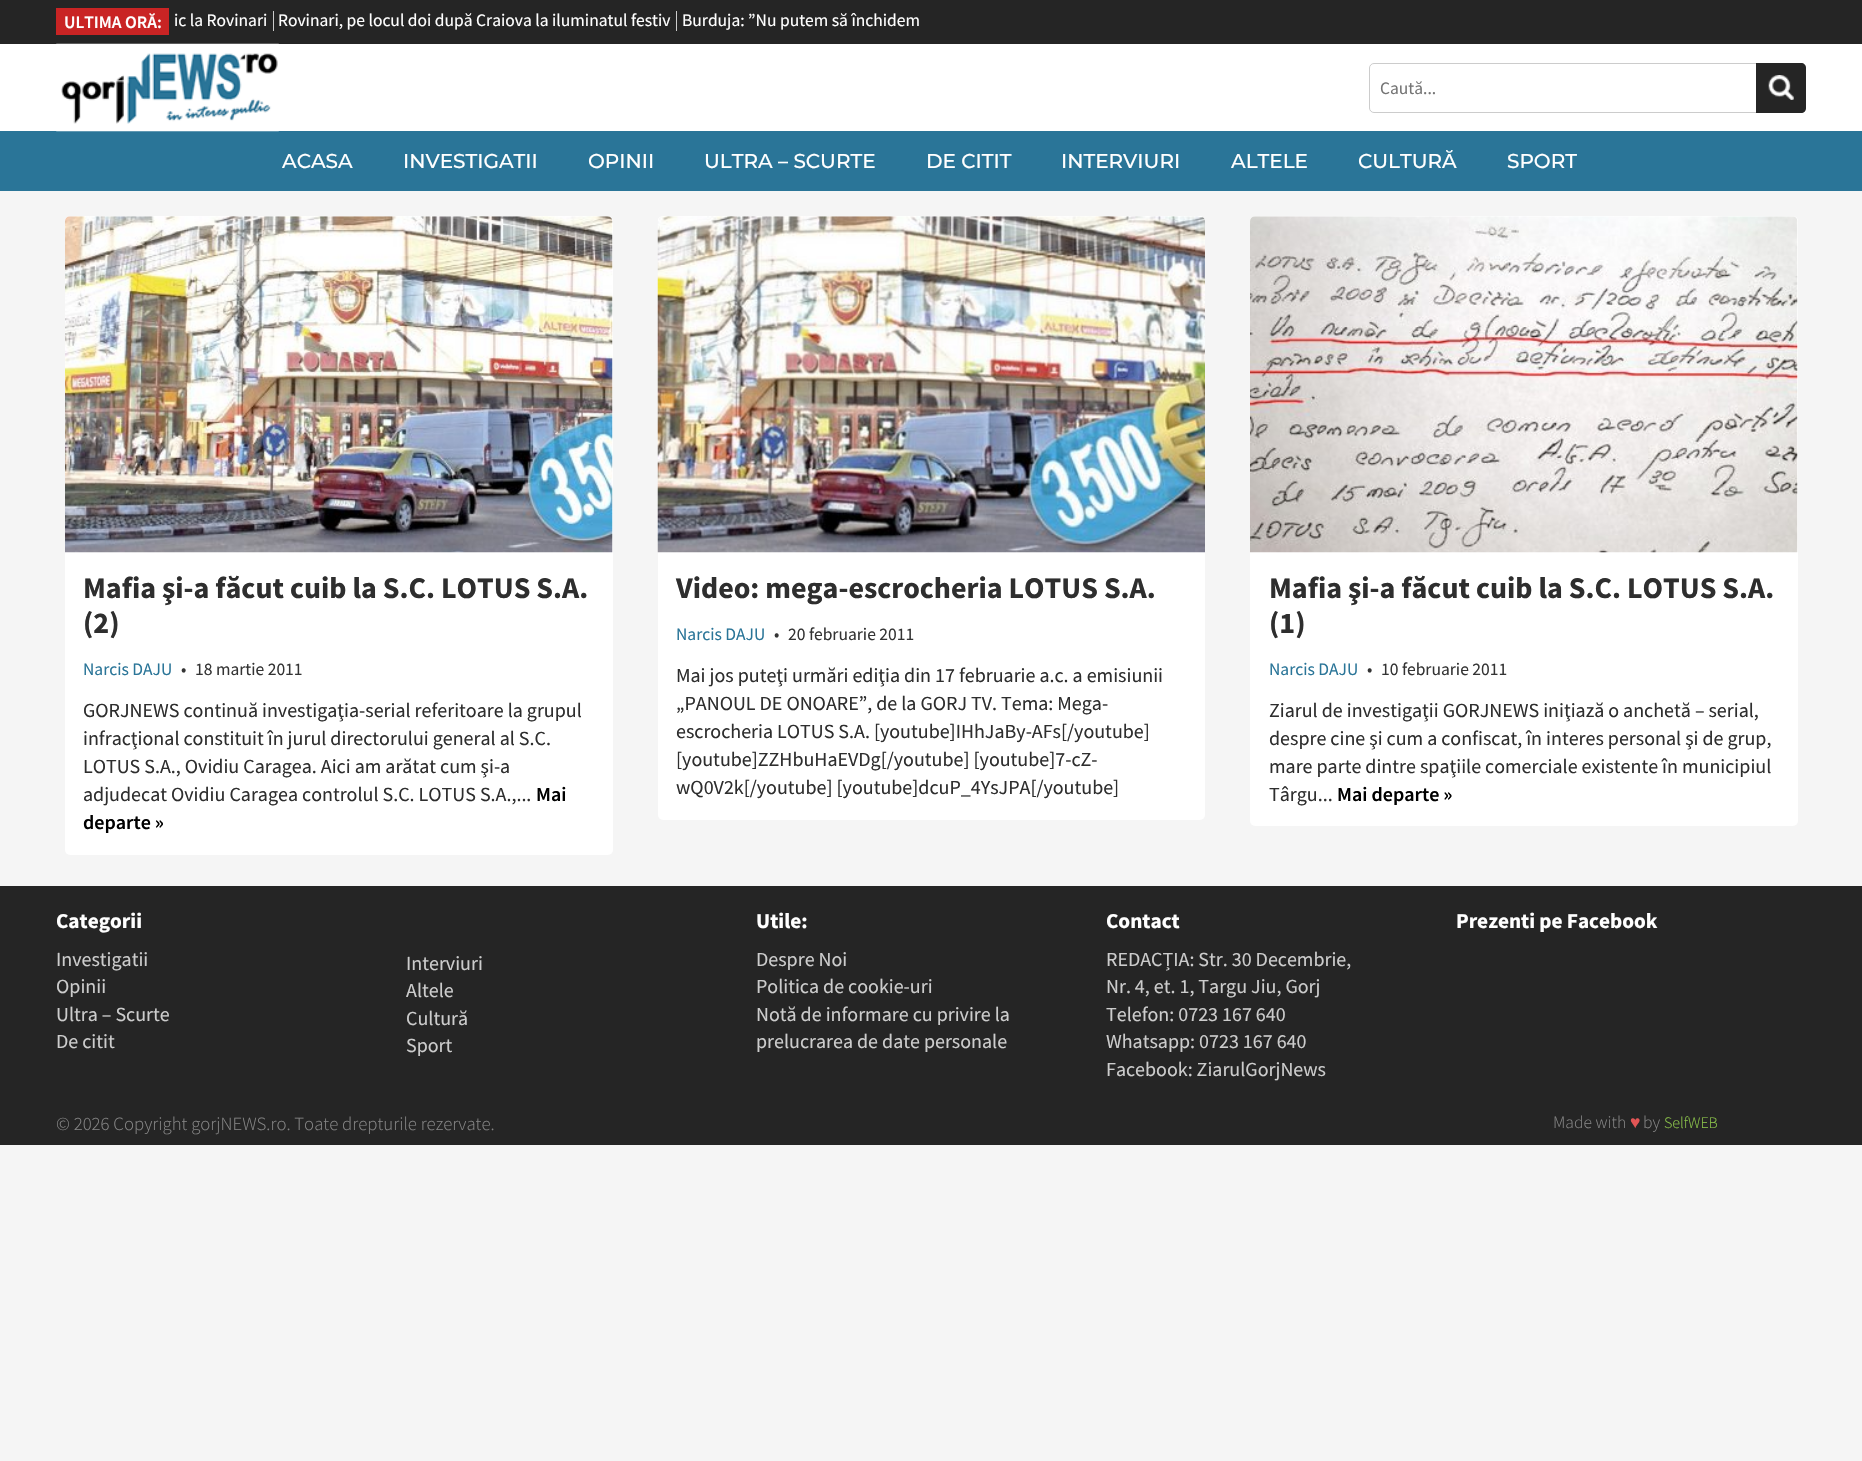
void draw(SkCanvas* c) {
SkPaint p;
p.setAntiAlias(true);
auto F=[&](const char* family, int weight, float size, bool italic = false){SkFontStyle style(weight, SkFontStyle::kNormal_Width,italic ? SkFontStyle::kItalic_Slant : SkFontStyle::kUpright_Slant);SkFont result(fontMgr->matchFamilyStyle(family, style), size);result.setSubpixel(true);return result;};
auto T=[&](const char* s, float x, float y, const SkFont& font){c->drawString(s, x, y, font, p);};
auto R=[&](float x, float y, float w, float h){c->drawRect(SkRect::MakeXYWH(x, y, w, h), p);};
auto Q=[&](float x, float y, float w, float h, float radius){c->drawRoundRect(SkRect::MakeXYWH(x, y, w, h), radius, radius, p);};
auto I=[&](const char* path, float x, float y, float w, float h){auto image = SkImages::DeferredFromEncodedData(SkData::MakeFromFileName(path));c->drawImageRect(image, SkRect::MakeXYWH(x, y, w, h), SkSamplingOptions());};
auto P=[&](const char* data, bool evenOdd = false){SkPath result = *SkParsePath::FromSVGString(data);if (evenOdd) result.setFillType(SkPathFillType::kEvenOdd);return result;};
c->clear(0xfff5f5f5);
p.setColor(0xff252525);
R(0,0,1862,44);
p.setColor(0xffc92424);
R(56,8,113,27);
auto f1 = F("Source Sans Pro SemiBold",600,17.5);
p.setColor(0xffffffff);
T("ULTIMA ORĂ:",64,28,f1);
auto f2 = F("Source Sans Pro",400,17.5);
T("ic la Rovinari",174,26,f2);
p.setColor(0xffcccccc);
R(273,11,1,20);
p.setColor(0xffffffff);
T("Rovinari, pe locul doi după Craiova la iluminatul festiv",278,26,f2);
p.setColor(0xffcccccc);
R(676,11,1,20);
p.setColor(0xffffffff);
T("Burduja: ”Nu putem să închidem",682,26,f2);
R(0,44,1862,87);
p.setColor(0xff2a7598);
R(0,131,1862,60);
I("1.png",56,43,223,89);
p.setStroke(true);
p.setStrokeWidth(1);
p.setColor(0xffcccccc);
c->drawRoundRect(SkRect::MakeXYWH(1369.5,63.5,436,49),4.5,4.5,p);
p.setStroke(false);
p.setColor(0xff757575);
T("Caută...",1380,94,f2);
p.setColor(0xff252525);
c->drawPath(P("M1756 63h45c3 0 5 2 5 5v40c0 3-2 5-5 5h-45z"),p);
I("2.png",1768,75,26,25);
auto f3 = F("Montserrat",500,20);
p.setColor(0xffffffff);
T("ACASA",282,168,f3);
T("INVESTIGATII",403,168,f3);
T("OPINII",588,168,f3);
T("ULTRA – SCURTE",704,168,f3);
T("DE CITIT",926,168,f3);
T("INTERVIURI",1061,168,f3);
T("ALTELE",1231,168,f3);
T("CULTURĂ",1358,168,f3);
T("SPORT",1507,168,f3);
Q(65,216,548,639,5);
I("3.png",65,216,548,337);
auto f4 = F("Source Sans Pro",700,30);
p.setColor(0xff2e2e2e);
T("Mafia şi-a făcut cuib la S.C. LOTUS S.A.",83,598,f4);
T("(2)",83,633,f4);
p.setColor(0xff2a7598);
T("Narcis DAJU",83,675,f2);
p.setColor(0xff343434);
T("•",181,675,f2);
T("18 martie 2011",195,675,f2);
auto f5 = F("Source Sans Pro",400,20);
p.setColor(0xff2e2e2e);
T("GORJNEWS continuă investigaţia-serial referitoare la grupul",83,717,f5);
T("infracţional constituit în jurul directorului general al S.C.",83,745,f5);
T("LOTUS S.A., Ovidiu Caragea. Aici am arătat cum şi-a",83,773,f5);
T("adjudecat Ovidiu Caragea controlul S.C. LOTUS S.A.,...",83,801,f5);
auto f6 = F("Source Sans Pro SemiBold",600,20);
p.setColor(0xff000000);
T("Mai",536,801,f6);
T("departe »",83,829,f6);
p.setColor(0xffffffff);
Q(658,216,547,604,5);
I("4.png",657,216,548,337);
p.setColor(0xff2e2e2e);
T("Video: mega-escrocheria LOTUS S.A.",676,598,f4);
p.setColor(0xff2a7598);
T("Narcis DAJU",676,640,f2);
p.setColor(0xff343434);
T("•",774,640,f2);
T("20 februarie 2011",788,640,f2);
p.setColor(0xff2e2e2e);
T("Mai jos puteţi urmări ediţia din 17 februarie a.c. a emisiunii",676,682,f5);
T("„PANOUL DE ONOARE”, de la GORJ TV. Tema: Mega-",676,710,f5);
T("escrocheria LOTUS S.A. [youtube]IHhJaBy-AFs[/youtube]",676,738,f5);
T("[youtube]ZZHbuHaEVDg[/youtube] [youtube]7-cZ-",676,766,f5);
T("wQ0V2k[/youtube] [youtube]dcuP_4YsJPA[/youtube]",676,794,f5);
p.setColor(0xffffffff);
Q(1250,216,548,610,5);
I("5.png",1250,216,548,337);
p.setColor(0xff2e2e2e);
T("Mafia şi-a făcut cuib la S.C. LOTUS S.A.",1269,598,f4);
T("(1)",1269,633,f4);
p.setColor(0xff2a7598);
T("Narcis DAJU",1269,675,f2);
p.setColor(0xff343434);
T("•",1367,675,f2);
T("10 februarie 2011",1381,675,f2);
p.setColor(0xff2e2e2e);
T("Ziarul de investigaţii GORJNEWS iniţiază o anchetă – serial,",1269,717,f5);
T("despre cine şi cum a confiscat, în interes personal şi de grup,",1269,745,f5);
T("mare parte dintre spaţiile comerciale existente în municipiul",1269,773,f5);
T("Târgu...",1269,801,f5);
p.setColor(0xff000000);
T("Mai departe »",1337,801,f6);
p.setColor(0xff252525);
R(0,886,1862,259);
auto f7 = F("Source Sans Pro",700,21.25);
p.setColor(0xffffffff);
T("Categorii",56,928,f7);
p.setColor(0xffcccccc);
T("Investigatii",56,966,f5);
T("Opinii",56,993,f5);
T("Ultra – Scurte",56,1021,f5);
T("De citit",56,1048,f5);
T("Interviuri",406,970,f5);
T("Altele",406,997,f5);
T("Cultură",406,1025,f5);
T("Sport",406,1052,f5);
p.setColor(0xffffffff);
T("Utile:",756,928,f7);
p.setColor(0xffcccccc);
T("Despre Noi",756,966,f5);
T("Politica de cookie-uri",756,993,f5);
T("Notă de informare cu privire la",756,1021,f5);
T("prelucrarea de date personale",756,1048,f5);
p.setColor(0xffffffff);
T("Contact",1106,928,f7);
p.setColor(0xffcccccc);
T("REDACȚIA: Str. 30 Decembrie,",1106,966,f5);
T("Nr. 4, et. 1, Targu Jiu, Gorj",1106,993,f5);
T("Telefon: 0723 167 640",1106,1021,f5);
T("Whatsapp: 0723 167 640",1106,1048,f5);
T("Facebook: ZiarulGorjNews",1106,1076,f5);
p.setColor(0xffffffff);
T("Prezenti pe Facebook",1456,928,f7);
auto f8 = F("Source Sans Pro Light",300,18.75);
p.setColor(0xff858585);
T("© 2026 Copyright gorjNEWS.ro. Toate drepturile rezervate.",56,1130,f8);
auto f9 = F("Source Sans Pro Light",300,17.5);
T("Made with",1553,1128,f9);
auto f10 = F("Liberation Sans",400,17.5);
p.setColor(0xffe25555);
T("♥",1630,1128,f10);
p.setColor(0xff858585);
T("by",1643,1128,f9);
auto f11 = F("Source Sans Pro Light",300,16);
p.setColor(0xff8bc34a);
T("SelfWEB",1664,1128,f11);
}
